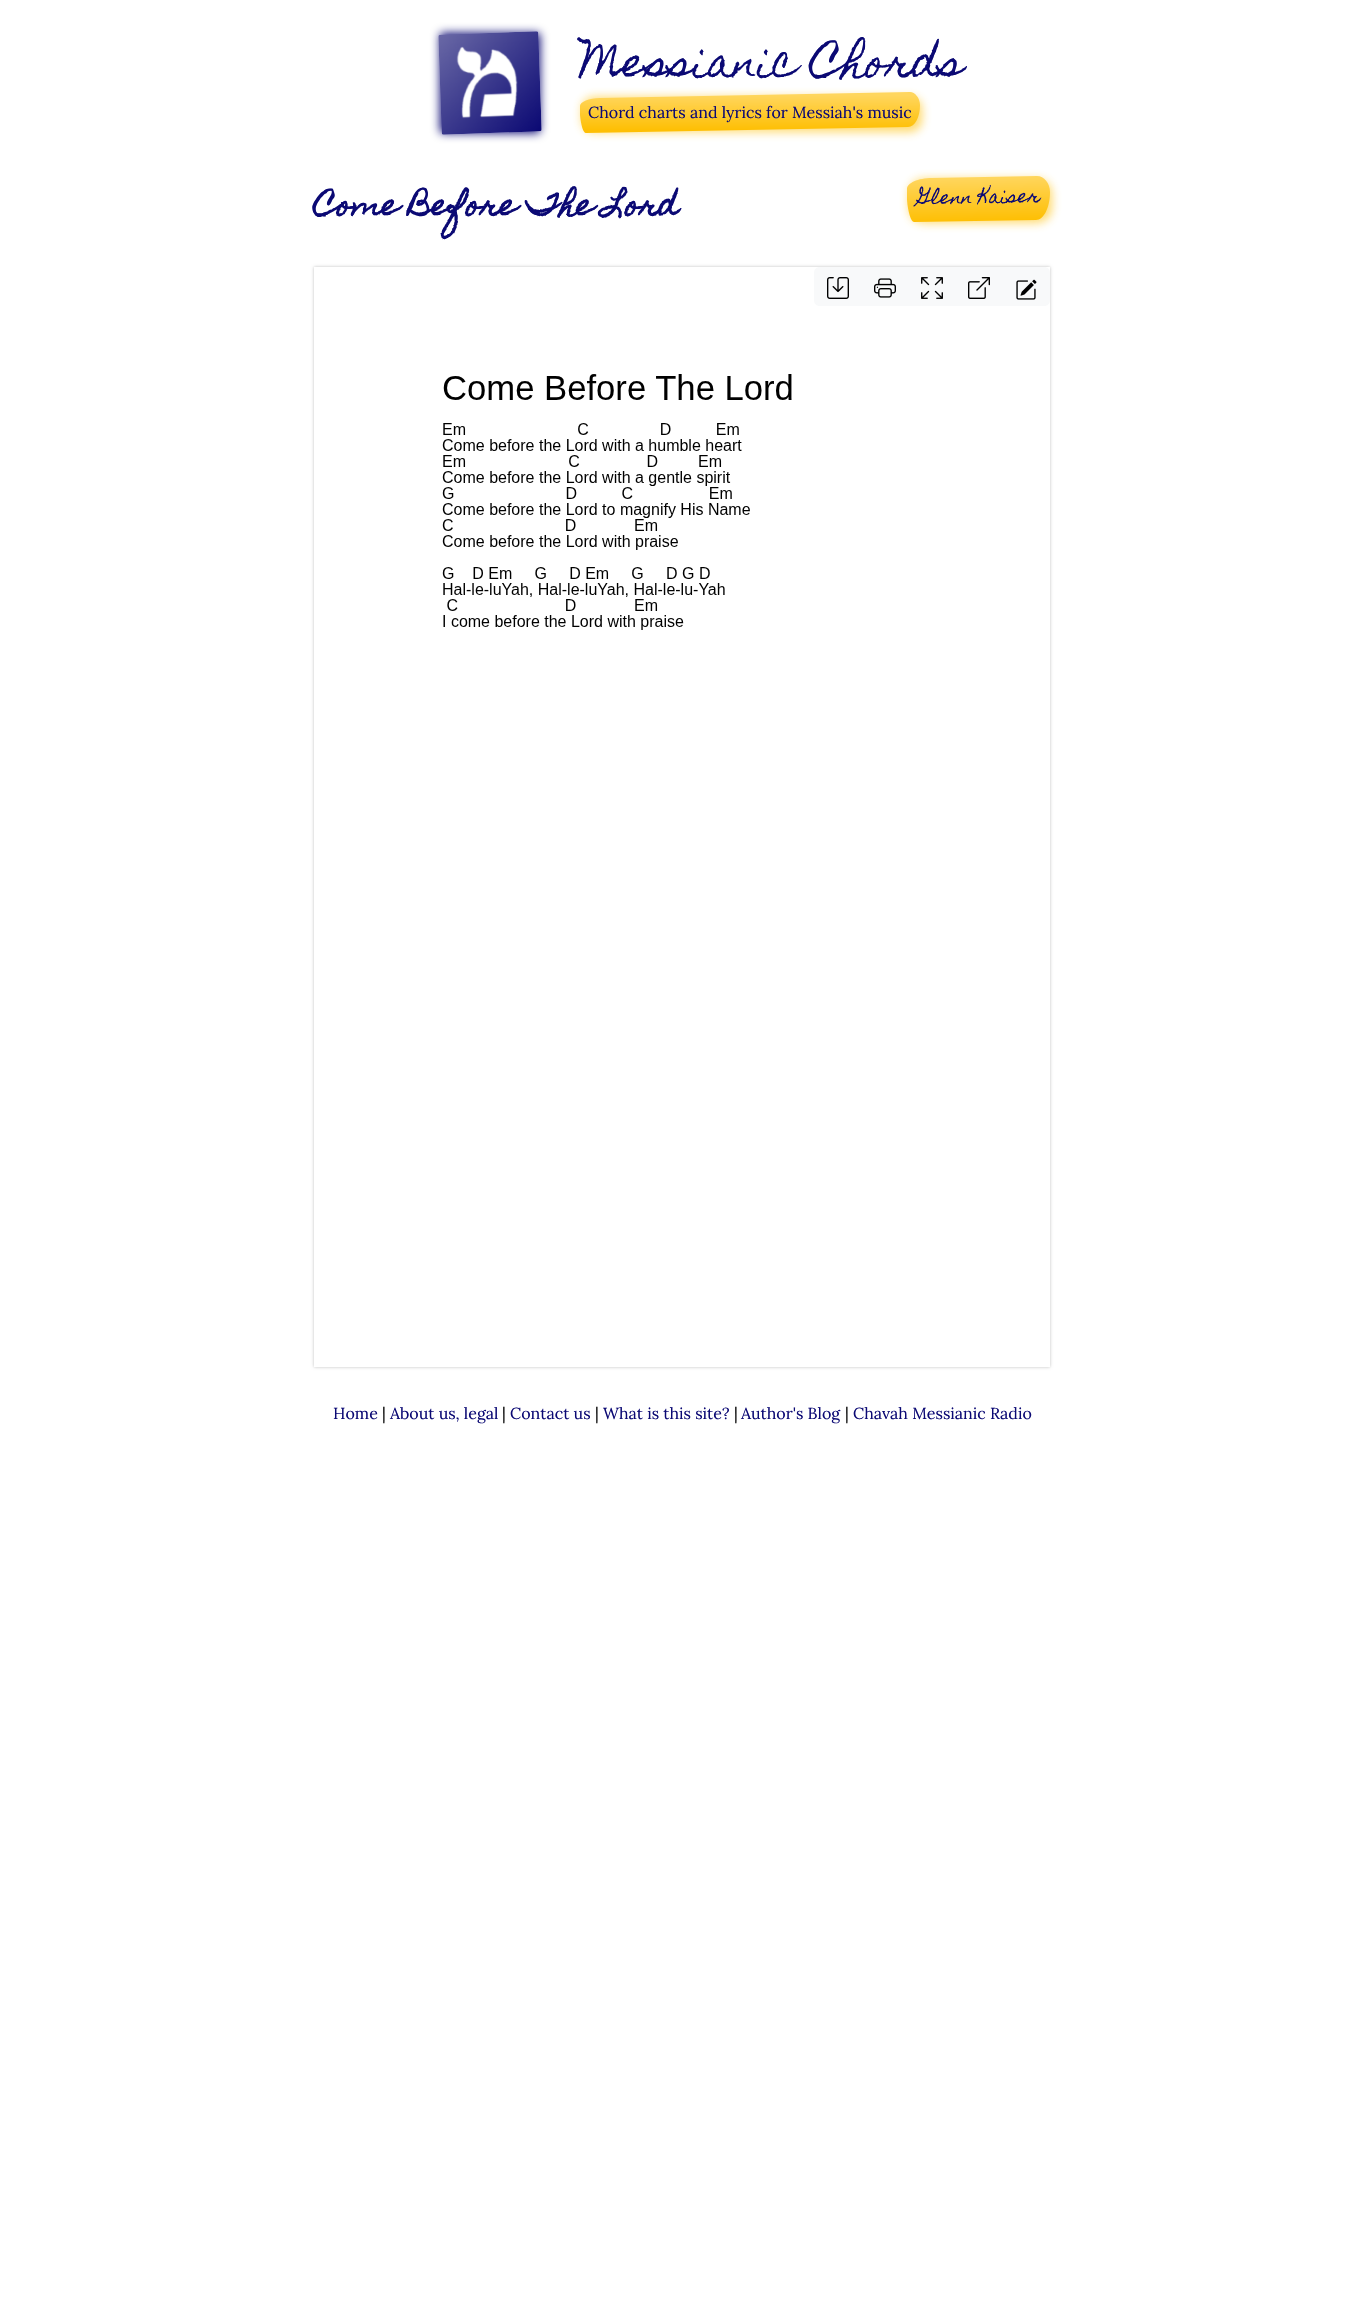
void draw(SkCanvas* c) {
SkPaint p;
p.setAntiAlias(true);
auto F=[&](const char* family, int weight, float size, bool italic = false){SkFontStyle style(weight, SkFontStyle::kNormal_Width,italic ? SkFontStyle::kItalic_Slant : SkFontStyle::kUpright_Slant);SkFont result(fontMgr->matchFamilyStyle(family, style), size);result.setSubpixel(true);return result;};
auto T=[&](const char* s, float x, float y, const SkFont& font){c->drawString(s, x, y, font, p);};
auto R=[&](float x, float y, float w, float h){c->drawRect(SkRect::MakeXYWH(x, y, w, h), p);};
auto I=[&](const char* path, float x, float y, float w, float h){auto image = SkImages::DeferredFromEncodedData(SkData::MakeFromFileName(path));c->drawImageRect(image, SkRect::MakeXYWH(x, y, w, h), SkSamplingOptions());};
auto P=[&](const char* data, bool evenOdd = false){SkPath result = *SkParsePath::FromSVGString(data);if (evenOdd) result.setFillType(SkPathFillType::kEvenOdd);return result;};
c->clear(0xffffffff);
p.setColor(0xff0b0974);
p.setMaskFilter(SkMaskFilter::MakeBlur(kNormal_SkBlurStyle, 5));
c->drawRoundRect(SkRect::MakeXYWH(440,33,100,100),2,2,p);
p.setMaskFilter(nullptr);
I("1.png",438,31,104,104);
auto f1 = F("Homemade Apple",400,40);
T("Messianic Chords",580,76,f1);
p.setColor(0xe6ffd65e);
p.setMaskFilter(SkMaskFilter::MakeBlur(kNormal_SkBlurStyle, 5));
c->drawRoundRect(SkRect::MakeXYWH(582,97,340,35),12,12,p);
p.setMaskFilter(nullptr);
{
const SkColor colors[] = {0xffffd65e,0xfffebf04};
const float stops[] = {0,1};
const SkPoint ends[] = {{750,95}, {750,130}};
p.setShader(SkGradientShader::MakeLinear(ends, colors, stops, 2, SkTileMode::kClamp));
p.setAlpha(255);
}
c->drawPath(P("M600 98l310-6c5 0 10 6 10 13c0 12-5 22-12 22l-322 6c-3 0-5-8-6-18v-9c0-4 9-8 20-8z"),p);
auto f2 = F("Lora",400,16);
p.setShader(nullptr);
p.setColor(0xff0b0974);
T("Chord charts and lyrics for Messiah's music",588,118,f2);
auto f3 = F("Homemade Apple",700,28.75);
T("Come Before The Lord",314,215,f3);
p.setColor(0xe6ffd65e);
p.setMaskFilter(SkMaskFilter::MakeBlur(kNormal_SkBlurStyle, 5));
c->drawRoundRect(SkRect::MakeXYWH(909,179,143,44),15,15,p);
p.setMaskFilter(nullptr);
{
const SkColor colors[] = {0xffffd65e,0xfffebf04};
const float stops[] = {0,1};
const SkPoint ends[] = {{978,177}, {979,221}};
p.setShader(SkGradientShader::MakeLinear(ends, colors, stops, 2, SkTileMode::kClamp));
p.setAlpha(255);
}
c->drawPath(P("M932 178l105-2c7 0 13 7 13 16c0 15-6 28-14 28l-122 2c-3 0-6-10-7-22v-11c0-6 11-11 25-11z"),p);
auto f4 = F("Homemade Apple",400,18);
p.setShader(nullptr);
p.setColor(0xff0b0974);
c->save();
c->rotate(-1,918,204);
T("Glenn Kaiser",918,204,f4);
c->restore();
c->save();
c->clipPath(P("M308 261h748v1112h-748zm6 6h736v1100h-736z",true),true);
p.setColor(0xffc0c0c0);
p.setMaskFilter(SkMaskFilter::MakeBlur(kNormal_SkBlurStyle, 1.5));
c->drawRect(SkRect::MakeXYWH(314,267,736,1100),p);
p.setMaskFilter(nullptr);
c->restore();
I("2.png",442,374,350,256);
p.setColor(0xfff8f9fa);
c->drawPath(P("M820 267h42v39h-42c-3.5 0-6-2.5-6-6v-27c0-3.5 2.5-6 6-6z"),p);
I("3.png",827,277,22,22);
R(862,267,140,39);
I("4.png",874,278,22,20);
c->drawPath(P("M1002 267h42c3.5 0 6 2.5 6 6v27c0 3.5-2.5 6-6 6h-42z"),p);
I("5.png",1016,279,21,21);
I("6.png",921,277,22,22);
I("7.png",968,277,22,22);
p.setColor(0xff0b0974);
T("Home",333,1419,f2);
p.setColor(0xff000000);
T("|",382,1419,f2);
p.setColor(0xff0b0974);
T("About us, legal",390,1419,f2);
p.setColor(0xff000000);
T("|",502,1419,f2);
p.setColor(0xff0b0974);
T("Contact us",510,1419,f2);
p.setColor(0xff000000);
T("|",595,1419,f2);
p.setColor(0xff0b0974);
T("What is this site?",603,1419,f2);
p.setColor(0xff000000);
T("|",734,1419,f2);
p.setColor(0xff0b0974);
T("Author's Blog",741,1419,f2);
p.setColor(0xff000000);
T("|",845,1419,f2);
p.setColor(0xff0b0974);
T("Chavah Messianic Radio",853,1419,f2);
}
